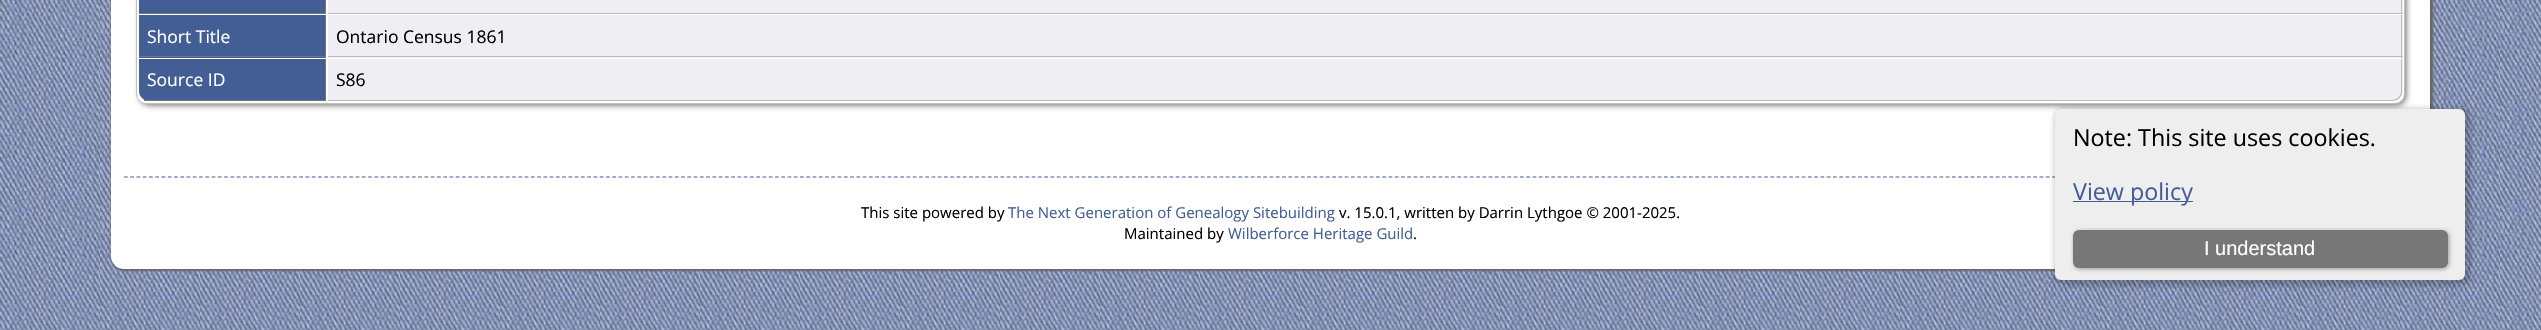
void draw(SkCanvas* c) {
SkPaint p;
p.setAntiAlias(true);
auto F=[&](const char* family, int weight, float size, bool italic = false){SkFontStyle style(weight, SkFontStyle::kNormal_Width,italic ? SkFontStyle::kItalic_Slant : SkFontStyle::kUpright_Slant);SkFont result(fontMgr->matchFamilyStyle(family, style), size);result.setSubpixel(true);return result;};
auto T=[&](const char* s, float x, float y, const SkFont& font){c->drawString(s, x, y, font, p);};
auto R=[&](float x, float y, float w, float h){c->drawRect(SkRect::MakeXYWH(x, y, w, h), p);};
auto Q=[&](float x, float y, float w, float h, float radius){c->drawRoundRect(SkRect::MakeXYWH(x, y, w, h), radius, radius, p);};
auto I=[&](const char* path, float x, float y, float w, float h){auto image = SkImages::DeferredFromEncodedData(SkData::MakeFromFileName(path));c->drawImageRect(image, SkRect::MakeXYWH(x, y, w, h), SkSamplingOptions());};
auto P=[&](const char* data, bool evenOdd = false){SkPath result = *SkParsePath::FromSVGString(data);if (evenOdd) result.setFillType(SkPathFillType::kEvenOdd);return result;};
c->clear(0xffffffff);
I("1.png",0,0,2541,330);
p.setColor(0xff666666);
p.setMaskFilter(SkMaskFilter::MakeBlur(kNormal_SkBlurStyle, 1));
c->drawRoundRect(SkRect::MakeXYWH(111,-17,2322,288),14,14,p);
p.setMaskFilter(nullptr);
p.setColor(0xffffffff);
Q(111,-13,2319,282,13);
p.setColor(0xff666666);
p.setMaskFilter(SkMaskFilter::MakeBlur(kNormal_SkBlurStyle, 3));
c->drawRoundRect(SkRect::MakeXYWH(140,-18,2266,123),9,9,p);
p.setMaskFilter(nullptr);
p.setColor(0xffffffff);
c->drawRoundRect(SkRect::MakeXYWH(136.5,-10.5,2268,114),9.5,9.5,p);
p.setStroke(true);
p.setStrokeWidth(1);
p.setColor(0xffc0c0c0);
c->drawRoundRect(SkRect::MakeXYWH(136.5,-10.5,2268,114),9.5,9.5,p);
p.setStroke(false);
p.setColor(0xff435e95);
R(139,0,186,13);
p.setColor(0xff777777);
R(325,0,1,14);
R(139,13,187,1);
p.setColor(0xffeeeef3);
R(328,0,2075,13);
p.setColor(0xffbbbbbb);
R(2401,0,1,14);
R(328,13,2075,1);
p.setColor(0xff435e95);
R(139,15,186,43);
p.setColor(0xff777777);
R(325,15,1,43);
R(139,56,187,1);
auto f1 = F("Open Sans",400,17.5);
p.setColor(0xffffffff);
T("Short Title",147,43,f1);
p.setColor(0xffeeeef3);
R(328,15,2075,43);
p.setColor(0xffbbbbbb);
R(2401,15,1,43);
R(328,56,2075,1);
p.setColor(0xff000000);
T("Ontario Census 1861",336,43,f1);
p.setColor(0xff435e95);
c->drawPath(P("M139 59h187v42h-177c-5.5 0-10-4.5-10-10z"),p);
p.setColor(0xff777777);
R(325,59,1,42);
R(144,100,182,1);
p.setColor(0xffffffff);
T("Source ID",147,86,f1);
p.setColor(0xffeeeef3);
c->drawPath(P("M328 59h2075v32c0 5.5-4.5 10-10 10h-2065z"),p);
p.setColor(0xffbbbbbb);
c->drawPath(P("M328 59h2074v32c0 6-4 10-10 10h-2064zm0 0h2073v32c0 5-4 9-9 9h-2064z",true),p);
p.setColor(0xff000000);
T("S86",336,86,f1);
p.setStroke(true);
p.setStrokeWidth(1.2);
p.setColor(0xff435e95);
p.setPathEffect(SkDashPathEffect::Make({{3.75f,2.51f}}, 0));
c->drawPath(P("M124 177h2268.5"),p);
p.setPathEffect(nullptr);
p.setStroke(false);
p.setColor(0x33000000);
p.setMaskFilter(SkMaskFilter::MakeBlur(kNormal_SkBlurStyle, 2.5));
c->drawRoundRect(SkRect::MakeXYWH(2054,108,417,178),10,10,p);
p.setMaskFilter(nullptr);
p.setColor(0xffeeeeee);
Q(2055,109,410,171,6);
auto f2 = F("Open Sans",400,23.3);
p.setColor(0xff000000);
T("Note: This site uses cookies.",2073,146,f2);
p.setColor(0xff435e95);
R(2073,201,120,1);
T("View policy",2073,200,f2);
p.setColor(0xff999999);
p.setMaskFilter(SkMaskFilter::MakeBlur(kNormal_SkBlurStyle, 2));
c->drawRoundRect(SkRect::MakeXYWH(2074,231,375,38),6,6,p);
p.setMaskFilter(nullptr);
p.setColor(0xff777777);
Q(2073,230,375,38,6);
auto f3 = F("Liberation Sans",400,20);
p.setColor(0xffffffff);
T("I understand",2204,255,f3);
auto f4 = F("Open Sans",400,15);
p.setColor(0xff000000);
T("This site powered by",861,218,f4);
p.setColor(0xff435e95);
T("The Next Generation of Genealogy Sitebuilding",1008,218,f4);
p.setColor(0xff000000);
T("v. 15.0.1, written by Darrin Lythgoe © 2001-2025.",1339,218,f4);
T("Maintained by",1124,239,f4);
p.setColor(0xff435e95);
T("Wilberforce Heritage Guild",1228,239,f4);
p.setColor(0xff000000);
T(".",1413,239,f4);
}
